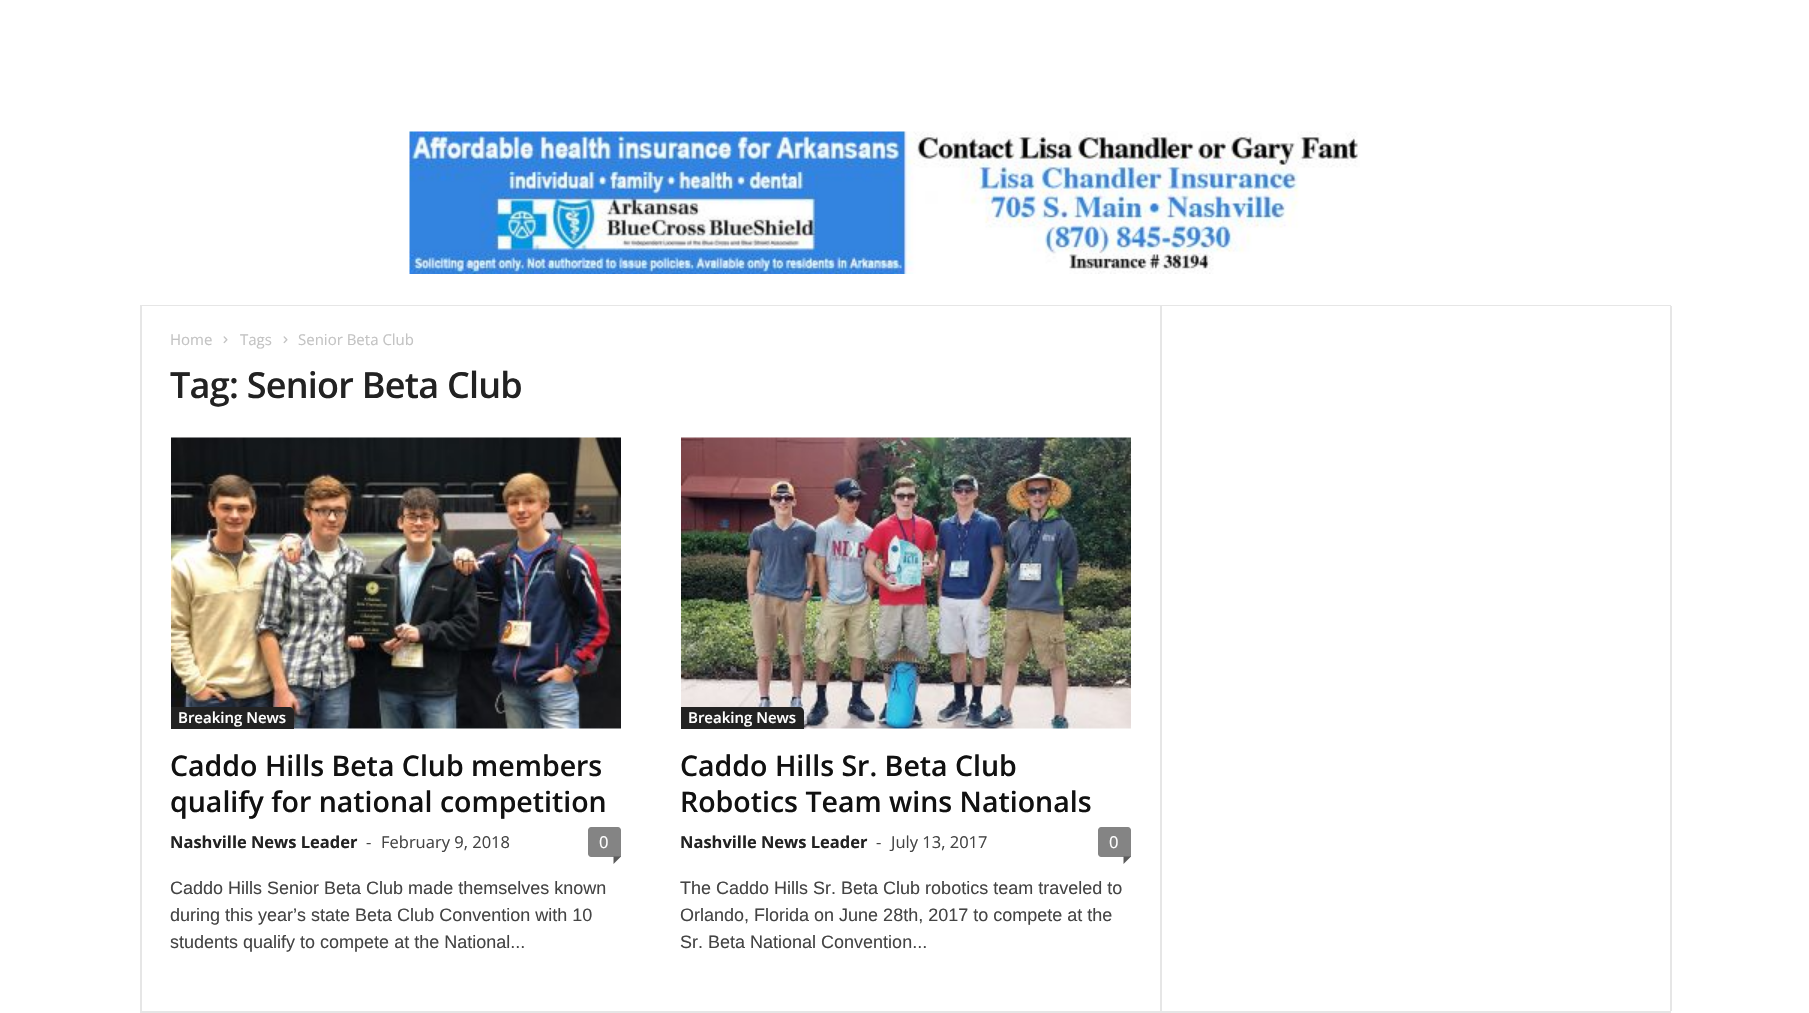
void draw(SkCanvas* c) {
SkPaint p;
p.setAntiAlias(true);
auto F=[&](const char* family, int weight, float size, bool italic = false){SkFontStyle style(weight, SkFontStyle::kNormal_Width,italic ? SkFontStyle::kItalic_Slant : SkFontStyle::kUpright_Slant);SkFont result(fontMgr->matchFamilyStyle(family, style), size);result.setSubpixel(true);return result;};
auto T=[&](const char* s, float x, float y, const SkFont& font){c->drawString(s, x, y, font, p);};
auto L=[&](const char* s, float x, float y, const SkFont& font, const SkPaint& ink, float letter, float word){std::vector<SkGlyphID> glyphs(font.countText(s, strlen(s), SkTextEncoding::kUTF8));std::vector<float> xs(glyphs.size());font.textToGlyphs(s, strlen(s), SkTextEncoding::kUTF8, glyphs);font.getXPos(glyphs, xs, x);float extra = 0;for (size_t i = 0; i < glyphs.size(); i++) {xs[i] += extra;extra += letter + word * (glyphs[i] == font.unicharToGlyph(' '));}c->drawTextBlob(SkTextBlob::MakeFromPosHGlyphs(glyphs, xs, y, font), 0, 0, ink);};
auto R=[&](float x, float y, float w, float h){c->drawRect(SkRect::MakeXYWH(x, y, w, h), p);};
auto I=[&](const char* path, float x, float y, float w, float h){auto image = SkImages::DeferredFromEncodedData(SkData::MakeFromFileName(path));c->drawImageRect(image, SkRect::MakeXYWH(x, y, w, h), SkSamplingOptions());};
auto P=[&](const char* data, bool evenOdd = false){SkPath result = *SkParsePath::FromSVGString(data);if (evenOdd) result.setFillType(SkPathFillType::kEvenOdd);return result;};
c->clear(0xffffffff);
p.setColor(0xffe6e6e6);
R(140,305,1531,1);
I("1.png",409,131,951,143);
R(140,1011,1531,2);
R(140,306,2,705);
auto f1 = F("Open Sans",400,15);
p.setColor(0xffc3c3c3);
T("Home",170,345,f1);
I("2.png",223,336,5,8);
T("Tags",240,345,f1);
I("2.png",283,336,5,8);
T("Senior Beta Club",298,345,f1);
auto f2 = F("Open Sans",600,36);
p.setColor(0xff222222);
L("Tag: Senior Beta Club",170,398,f2,p,-.75,0);
I("3.png",171,437,450,292);
c->drawPath(P("M171 707h118c3 0 5 2 5 5v17h-123z"),p);
auto f3 = F("Open Sans",600,15);
p.setColor(0xffffffff);
T("Breaking News",178,723,f3);
auto f4 = F("Open Sans",600,28.5);
p.setColor(0xff111111);
T("Caddo Hills Beta Club members",170,776,f4);
T("qualify for national competition",170,812,f4);
auto f5 = F("Open Sans",700,16.5);
p.setColor(0xff222222);
T("Nashville News Leader",170,848,f5);
auto f6 = F("Open Sans",400,16.5);
p.setColor(0xff444444);
T("-",366,848,f6);
T("February 9, 2018",381,848,f6);
p.setColor(0xff848484);
c->drawPath(P("M591 827h27c1.5 0 3 1.5 3 3v27h-30c-1.5 0-3-1.5-3-3v-24c0-1.5 1.5-3 3-3z"),p);
p.setColor(0xffffffff);
T("0",599,848,f6);
p.setColor(0xff5b5b5b);
c->drawPath(P("M613.5 856.5h7.5l-7.5 7.5z"),p);
auto f7 = F("Liberation Sans",400,18);
p.setColor(0xff444444);
T("Caddo Hills Senior Beta Club made themselves known",170,894,f7);
T("during this year’s state Beta Club Convention with 10",170,921,f7);
T("students qualify to compete at the National...",170,948,f7);
I("4.png",681,437,450,292);
p.setColor(0xff222222);
c->drawPath(P("M681 707h118c3 0 5 2 5 5v17h-123z"),p);
p.setColor(0xffffffff);
T("Breaking News",688,723,f3);
p.setColor(0xff111111);
T("Caddo Hills Sr. Beta Club",680,776,f4);
T("Robotics Team wins Nationals",680,812,f4);
p.setColor(0xff222222);
T("Nashville News Leader",680,848,f5);
p.setColor(0xff444444);
T("-",876,848,f6);
T("July 13, 2017",891,848,f6);
p.setColor(0xff848484);
c->drawPath(P("M1101 827h27c1.5 0 3 1.5 3 3v27h-30c-1.5 0-3-1.5-3-3v-24c0-1.5 1.5-3 3-3z"),p);
p.setColor(0xffffffff);
T("0",1109,848,f6);
p.setColor(0xff5b5b5b);
c->drawPath(P("M1123.5 856.5h7.5l-7.5 7.5z"),p);
p.setColor(0xff444444);
T("The Caddo Hills Sr. Beta Club robotics team traveled to",680,894,f7);
T("Orlando, Florida on June 28th, 2017 to compete at the",680,921,f7);
T("Sr. Beta National Convention...",680,948,f7);
p.setColor(0xffe6e6e6);
R(1160,306,2,705);
R(1670,306,2,705);
}
